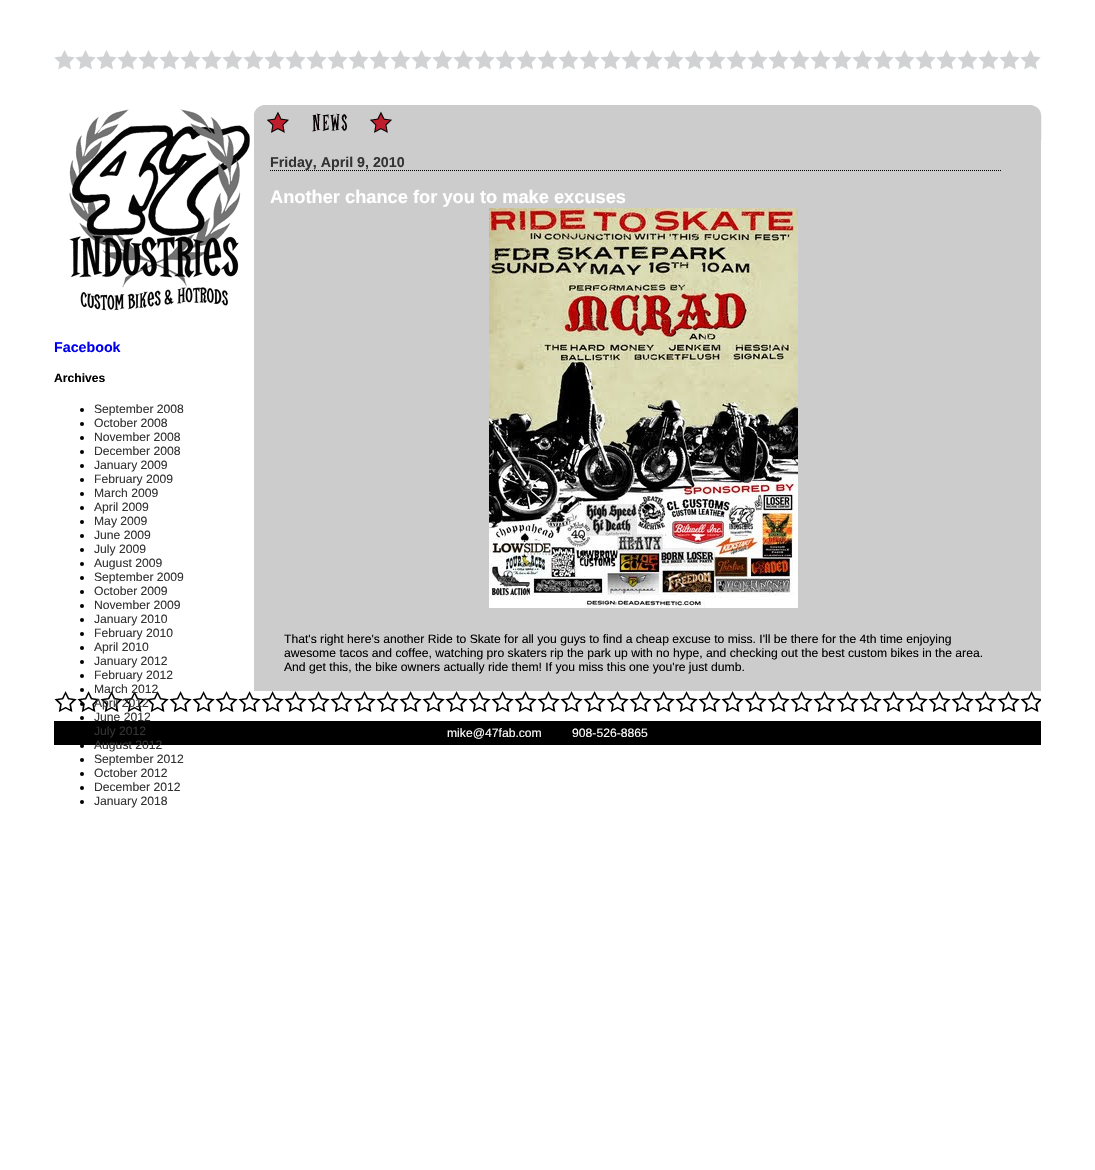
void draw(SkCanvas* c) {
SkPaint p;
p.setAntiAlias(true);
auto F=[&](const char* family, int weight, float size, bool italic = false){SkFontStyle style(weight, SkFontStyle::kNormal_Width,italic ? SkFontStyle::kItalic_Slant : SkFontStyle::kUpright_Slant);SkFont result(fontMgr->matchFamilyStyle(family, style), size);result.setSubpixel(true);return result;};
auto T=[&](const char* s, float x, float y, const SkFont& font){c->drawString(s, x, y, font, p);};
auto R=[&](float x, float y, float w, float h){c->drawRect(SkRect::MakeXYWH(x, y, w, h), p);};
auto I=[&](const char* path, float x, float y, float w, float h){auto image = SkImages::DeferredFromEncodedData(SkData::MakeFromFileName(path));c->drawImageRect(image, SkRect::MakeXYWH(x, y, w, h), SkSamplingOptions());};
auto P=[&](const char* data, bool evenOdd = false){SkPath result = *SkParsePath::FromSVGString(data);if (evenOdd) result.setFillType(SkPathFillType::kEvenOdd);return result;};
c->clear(0xffffffff);
I("1.png",54,50,987,20);
I("2.png",69,109,181,202);
auto f1 = F("Liberation Sans",700,14.25);
p.setColor(0xff0000ee);
T("Facebook",54,352,f1);
auto f2 = F("Liberation Sans",700,12.15);
p.setColor(0xff000000);
T("Archives",54,382,f2);
c->drawCircle(82,410,2,p);
auto f3 = F("Liberation Sans",400,12.15);
p.setColor(0xff333333);
T("September 2008",94,413,f3);
p.setColor(0xff000000);
c->drawCircle(82,424,2,p);
p.setColor(0xff333333);
T("October 2008",94,427,f3);
p.setColor(0xff000000);
c->drawCircle(82,438,2,p);
p.setColor(0xff333333);
T("November 2008",94,441,f3);
p.setColor(0xff000000);
c->drawCircle(82,452,2,p);
p.setColor(0xff333333);
T("December 2008",94,455,f3);
p.setColor(0xff000000);
c->drawCircle(82,466,2,p);
p.setColor(0xff333333);
T("January 2009",94,469,f3);
p.setColor(0xff000000);
c->drawCircle(82,480,2,p);
p.setColor(0xff333333);
T("February 2009",94,483,f3);
p.setColor(0xff000000);
c->drawCircle(82,494,2,p);
p.setColor(0xff333333);
T("March 2009",94,497,f3);
p.setColor(0xff000000);
c->drawCircle(82,508,2,p);
p.setColor(0xff333333);
T("April 2009",94,511,f3);
p.setColor(0xff000000);
c->drawCircle(82,522,2,p);
p.setColor(0xff333333);
T("May 2009",94,525,f3);
p.setColor(0xff000000);
c->drawCircle(82,536,2,p);
p.setColor(0xff333333);
T("June 2009",94,539,f3);
p.setColor(0xff000000);
c->drawCircle(82,550,2,p);
p.setColor(0xff333333);
T("July 2009",94,553,f3);
p.setColor(0xff000000);
c->drawCircle(82,564,2,p);
p.setColor(0xff333333);
T("August 2009",94,567,f3);
p.setColor(0xff000000);
c->drawCircle(82,578,2,p);
p.setColor(0xff333333);
T("September 2009",94,581,f3);
p.setColor(0xff000000);
c->drawCircle(82,592,2,p);
p.setColor(0xff333333);
T("October 2009",94,595,f3);
p.setColor(0xff000000);
c->drawCircle(82,606,2,p);
p.setColor(0xff333333);
T("November 2009",94,609,f3);
p.setColor(0xff000000);
c->drawCircle(82,620,2,p);
p.setColor(0xff333333);
T("January 2010",94,623,f3);
p.setColor(0xff000000);
c->drawCircle(82,634,2,p);
p.setColor(0xff333333);
T("February 2010",94,637,f3);
p.setColor(0xff000000);
c->drawCircle(82,648,2,p);
p.setColor(0xff333333);
T("April 2010",94,651,f3);
p.setColor(0xff000000);
c->drawCircle(82,662,2,p);
p.setColor(0xff333333);
T("January 2012",94,665,f3);
p.setColor(0xff000000);
c->drawCircle(82,676,2,p);
p.setColor(0xff333333);
T("February 2012",94,679,f3);
I("5.png",54,691,987,21);
p.setColor(0xff000000);
c->drawCircle(82,690,2,p);
p.setColor(0xff333333);
T("March 2012",94,693,f3);
p.setColor(0xff000000);
c->drawCircle(82,704,2,p);
p.setColor(0xff333333);
T("April 2012",94,707,f3);
p.setColor(0xff000000);
c->drawCircle(82,718,2,p);
R(54,721,987,24);
p.setColor(0xff333333);
T("June 2012",94,721,f3);
T("July 2012",94,735,f3);
p.setColor(0xff000000);
c->drawCircle(82,746,2,p);
p.setColor(0xff333333);
T("August 2012",94,749,f3);
p.setColor(0xff000000);
c->drawCircle(82,760,2,p);
p.setColor(0xff333333);
T("September 2012",94,763,f3);
p.setColor(0xff000000);
c->drawCircle(82,774,2,p);
p.setColor(0xff333333);
T("October 2012",94,777,f3);
p.setColor(0xff000000);
c->drawCircle(82,788,2,p);
p.setColor(0xff333333);
T("December 2012",94,791,f3);
p.setColor(0xff000000);
c->drawCircle(82,802,2,p);
p.setColor(0xff333333);
T("January 2018",94,805,f3);
p.setColor(0xffcccccc);
R(254,140,787,551);
I("3.png",254,105,788,35);
p.setStroke(true);
p.setStrokeWidth(1);
p.setColor(0xff000000);
p.setPathEffect(SkDashPathEffect::Make({{1,1}}, 0));
c->drawPath(P("M270 170.5h732"),p);
p.setPathEffect(nullptr);
p.setStroke(false);
p.setColor(0xff333333);
T("Friday, April 9, 2010",270,167,f1);
auto f4 = F("Liberation Sans",700,18.25);
p.setColor(0xffffffff);
T("Another chance for you to make excuses",270,203,f4);
I("4.png",489,208,309,400);
p.setColor(0xff000000);
T("That's right here's another Ride to Skate for all you guys to find a cheap excuse to miss. I'll be there for the 4th time enjoying",284,643,f3);
T("awesome tacos and coffee, watching pro skaters rip the park up with no hype, and checking out the best custom bikes in the area.",284,657,f3);
T("And get this, the bike owners actually ride them! If you miss this one you're just dumb.",284,671,f3);
p.setColor(0xffffffff);
T("mike@47fab.com         908-526-8865",447,737,f3);
}
